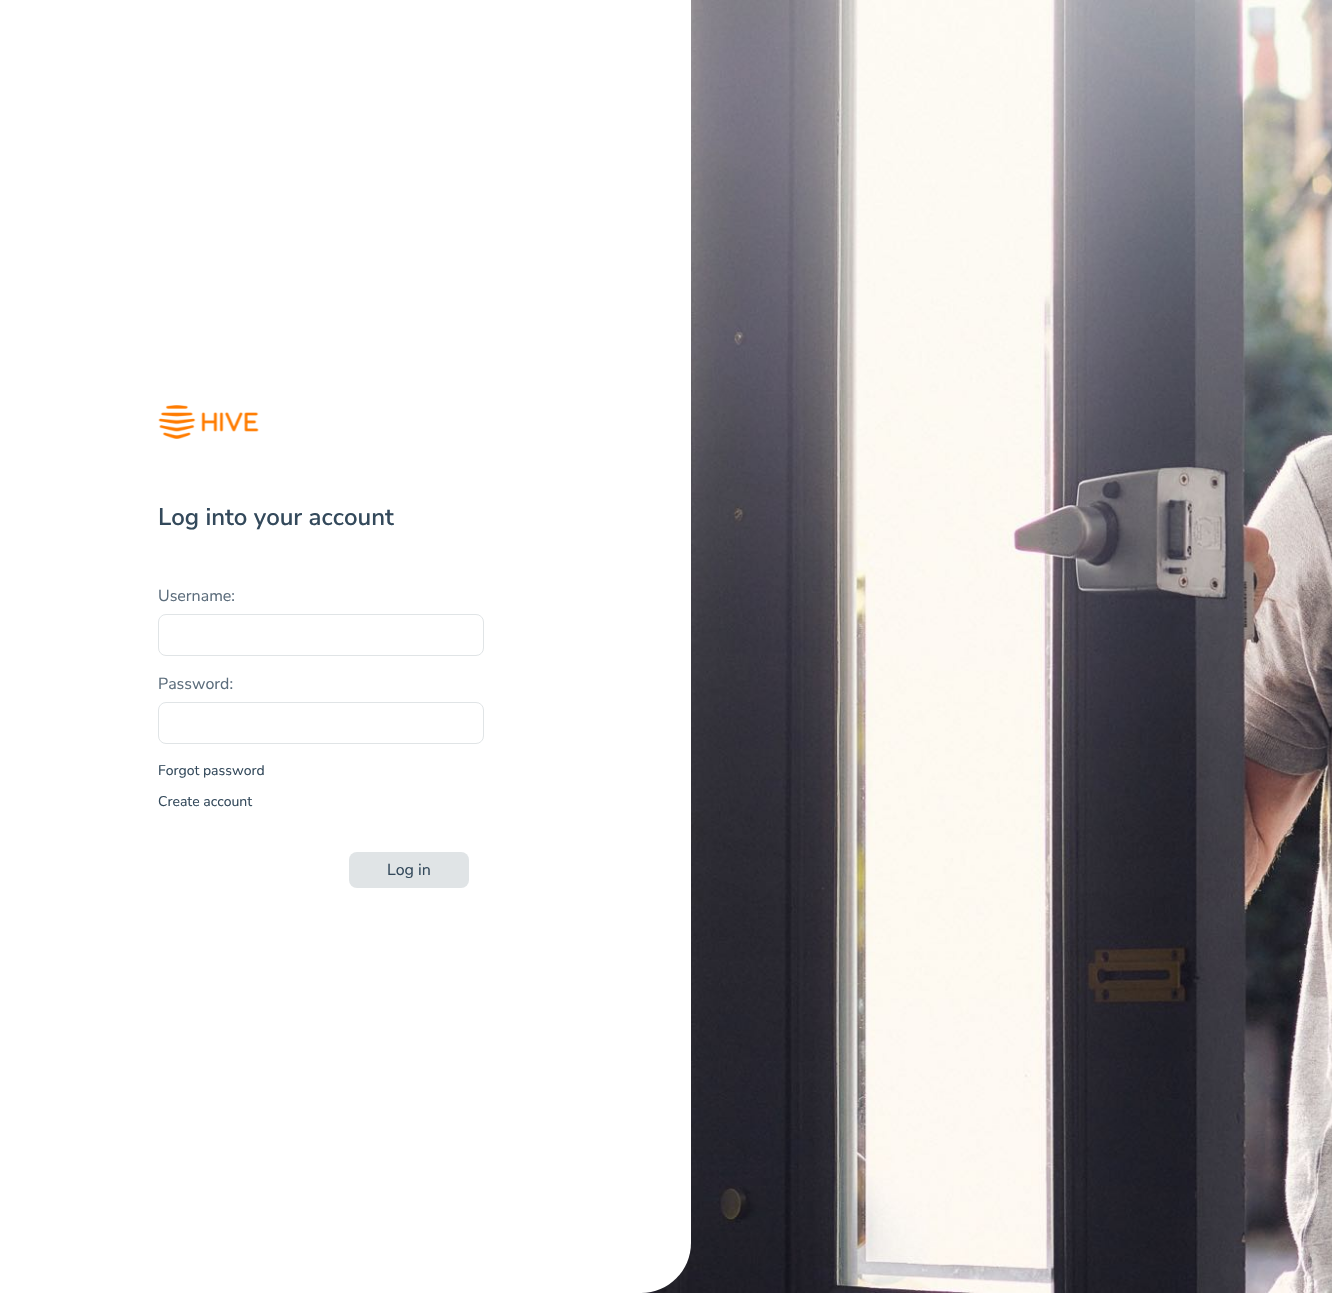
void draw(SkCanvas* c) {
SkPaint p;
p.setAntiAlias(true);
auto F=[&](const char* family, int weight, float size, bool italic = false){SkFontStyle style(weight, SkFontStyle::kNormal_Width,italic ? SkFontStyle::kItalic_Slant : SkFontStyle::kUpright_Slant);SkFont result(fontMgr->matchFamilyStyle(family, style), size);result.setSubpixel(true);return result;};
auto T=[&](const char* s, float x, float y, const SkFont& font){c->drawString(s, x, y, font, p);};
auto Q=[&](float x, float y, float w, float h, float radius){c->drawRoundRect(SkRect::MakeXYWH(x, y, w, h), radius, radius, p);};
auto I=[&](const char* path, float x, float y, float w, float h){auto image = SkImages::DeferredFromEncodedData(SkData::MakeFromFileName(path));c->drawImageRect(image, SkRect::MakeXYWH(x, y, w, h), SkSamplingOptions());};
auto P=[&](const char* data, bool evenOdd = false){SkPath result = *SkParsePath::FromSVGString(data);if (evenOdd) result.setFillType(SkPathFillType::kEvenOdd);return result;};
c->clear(0xffffffff);
I("1.png",158,405,101,34);
auto f1 = F("Nunito Sans",600,24);
p.setColor(0xff33495b);
T("Log into your account",158,525,f1);
auto f2 = F("Nunito Sans",400,16);
p.setColor(0xff5c6d7c);
T("Username:",158,601,f2);
p.setStroke(true);
p.setStrokeWidth(1);
p.setColor(0xffe0e4e6);
c->drawRoundRect(SkRect::MakeXYWH(158.5,614.5,325,41),7.5,7.5,p);
p.setStroke(false);
p.setColor(0xff5c6d7c);
T("Password:",158,689,f2);
p.setStroke(true);
p.setColor(0xffe0e4e6);
c->drawRoundRect(SkRect::MakeXYWH(158.5,702.5,325,41),7.5,7.5,p);
auto f3 = F("Nunito Sans",400,14);
p.setStroke(false);
p.setColor(0xff33495b);
T("Forgot password",158,775,f3);
T("Create account",158,806,f3);
p.setColor(0xffe0e4e6);
Q(349,852,120,36,8);
p.setColor(0xff33495b);
T("Log in",387,875,f2);
I("2.png",641,0,691,1293);
p.setColor(0xffffffff);
c->drawPath(P("M641 0h50v1243c0 27.5-22.5 50-50 50z"),p);
}
